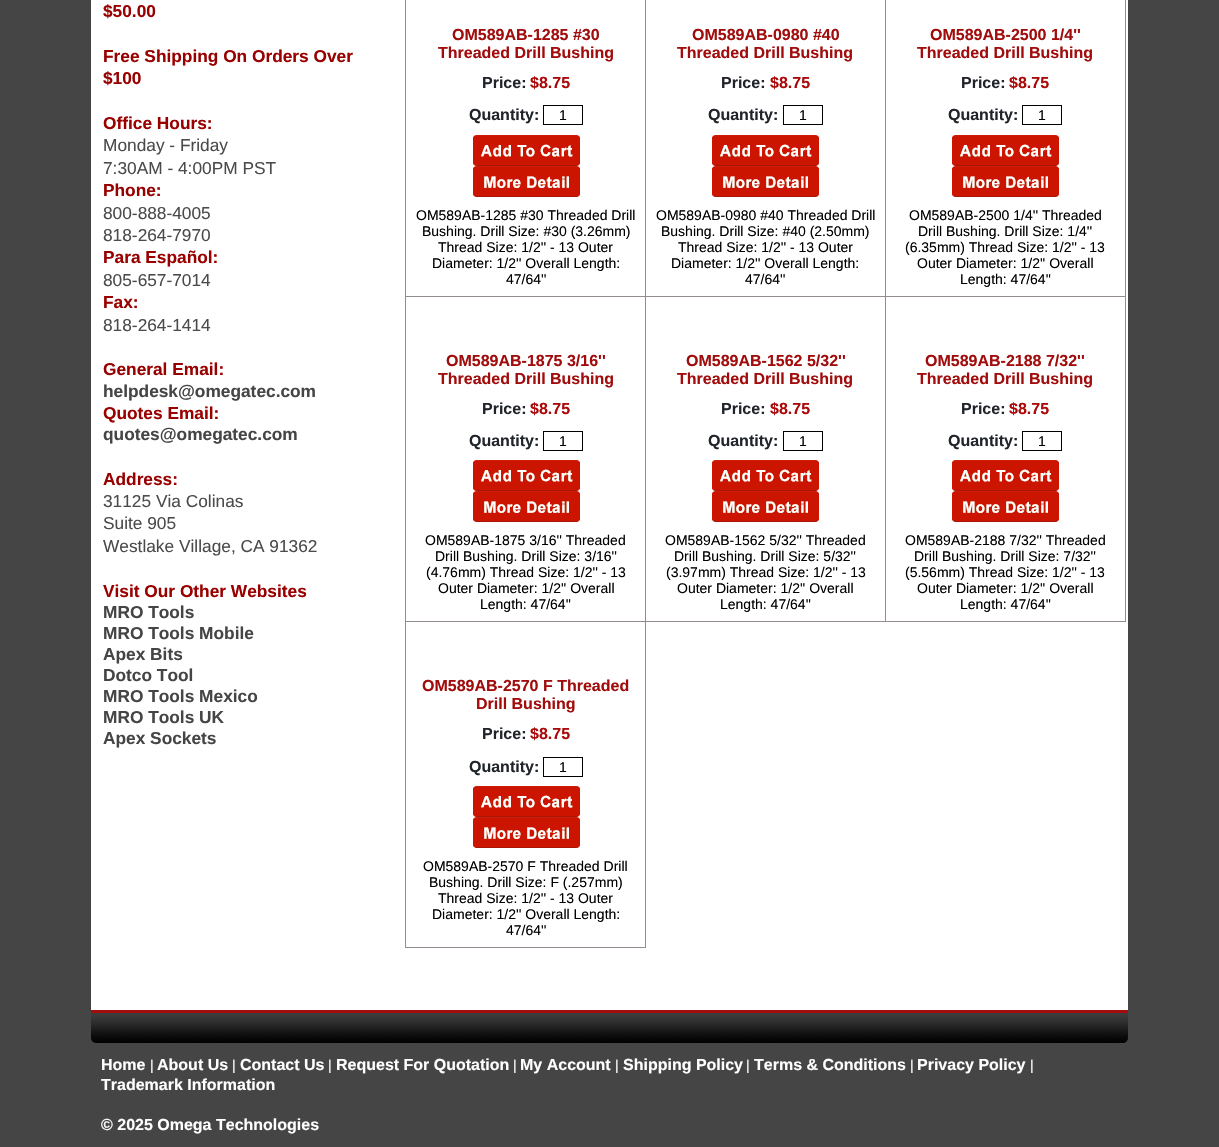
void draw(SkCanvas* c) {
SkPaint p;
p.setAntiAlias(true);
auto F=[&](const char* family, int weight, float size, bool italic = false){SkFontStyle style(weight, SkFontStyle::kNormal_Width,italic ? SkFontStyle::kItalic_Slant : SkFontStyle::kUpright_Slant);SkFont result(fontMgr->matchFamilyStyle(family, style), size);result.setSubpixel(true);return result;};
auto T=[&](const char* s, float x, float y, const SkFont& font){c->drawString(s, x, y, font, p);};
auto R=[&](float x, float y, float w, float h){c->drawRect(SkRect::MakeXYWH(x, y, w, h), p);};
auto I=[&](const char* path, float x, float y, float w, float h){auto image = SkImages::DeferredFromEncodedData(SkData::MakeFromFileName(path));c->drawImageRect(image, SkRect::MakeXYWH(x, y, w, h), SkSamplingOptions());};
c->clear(0xff454545);
p.setColor(0xffffffff);
R(91,0,1037,1010);
auto f1 = F("Liberation Sans",700,17.3);
p.setColor(0xff990000);
T("$50.00",103,17,f1);
T("Free Shipping On Orders Over",103,62,f1);
T("$100",103,84,f1);
T("Office Hours:",103,129,f1);
auto f2 = F("Liberation Sans",400,17.3);
p.setColor(0xff4b4b4b);
T("Monday - Friday",103,151,f2);
T("7:30AM - 4:00PM PST",103,174,f2);
p.setColor(0xff990000);
T("Phone:",103,196,f1);
p.setColor(0xff4b4b4b);
T("800-888-4005",103,219,f2);
T("818-264-7970",103,241,f2);
p.setColor(0xff990000);
T("Para Español:",103,263,f1);
p.setColor(0xff4b4b4b);
T("805-657-7014",103,286,f2);
p.setColor(0xff990000);
T("Fax:",103,308,f1);
p.setColor(0xff4b4b4b);
T("818-264-1414",103,331,f2);
p.setColor(0xff990000);
T("General Email:",103,375,f1);
p.setColor(0xff454545);
T("helpdesk@omegatec.com",103,397,f1);
p.setColor(0xff990000);
T("Quotes Email:",103,419,f1);
p.setColor(0xff454545);
T("quotes@omegatec.com",103,440,f1);
p.setColor(0xff990000);
T("Address:",103,485,f1);
p.setColor(0xff4b4b4b);
T("31125 Via Colinas",103,507,f2);
T("Suite 905",103,529,f2);
T("Westlake Village, CA 91362",103,552,f2);
p.setColor(0xff990000);
T("Visit Our Other Websites",103,597,f1);
p.setColor(0xff454545);
T("MRO Tools",103,618,f1);
T("MRO Tools Mobile",103,639,f1);
T("Apex Bits",103,660,f1);
T("Dotco Tool",103,681,f1);
T("MRO Tools Mexico",103,702,f1);
T("MRO Tools UK",103,723,f1);
T("Apex Sockets",103,744,f1);
auto f3 = F("Liberation Sans",700,16);
p.setColor(0xffa10c0c);
T("OM589AB-1285 #30",452,40,f3);
T("Threaded Drill Bushing",438,58,f3);
p.setColor(0xff21252b);
T("Price:",482,88,f3);
p.setColor(0xffaa0a0a);
T("$8.75",530,88,f3);
p.setColor(0xff21252b);
T("Quantity:",469,120,f3);
p.setStroke(true);
p.setStrokeWidth(1);
p.setColor(0xff000000);
c->drawRect(SkRect::MakeXYWH(543.5,105.5,39,19),p);
auto f4 = F("Liberation Sans",400,14);
p.setStroke(false);
T("1",559,120,f4);
I("1.png",473,135,107,31);
I("2.png",473,166,107,31);
T("OM589AB-1285 #30 Threaded Drill",416,220,f4);
T("Bushing. Drill Size: #30 (3.26mm)",422,236,f4);
T("Thread Size: 1/2'' - 13 Outer",438,252,f4);
T("Diameter: 1/2'' Overall Length:",432,268,f4);
T("47/64''",506,284,f4);
p.setColor(0xff948c8c);
R(885,296,241,1);
R(1125,0,1,622);
R(885,621,241,1);
R(885,296,1,326);
R(645,296,241,1);
R(405,621,241,1);
R(645,621,1,327);
R(645,621,241,1);
R(645,296,1,326);
R(405,296,241,1);
R(645,0,1,297);
p.setColor(0xffa10c0c);
T("OM589AB-0980 #40",692,40,f3);
T("Threaded Drill Bushing",677,58,f3);
p.setColor(0xff21252b);
T("Price:",721,88,f3);
p.setColor(0xffaa0a0a);
T("$8.75",770,88,f3);
p.setColor(0xff21252b);
T("Quantity:",708,120,f3);
p.setStroke(true);
p.setColor(0xff000000);
c->drawRect(SkRect::MakeXYWH(783.5,105.5,39,19),p);
p.setStroke(false);
T("1",799,120,f4);
I("1.png",712,135,107,31);
I("2.png",712,166,107,31);
T("OM589AB-0980 #40 Threaded Drill",656,220,f4);
T("Bushing. Drill Size: #40 (2.50mm)",661,236,f4);
T("Thread Size: 1/2'' - 13 Outer",678,252,f4);
T("Diameter: 1/2'' Overall Length:",671,268,f4);
T("47/64''",745,284,f4);
p.setColor(0xff948c8c);
R(885,0,1,297);
p.setColor(0xffa10c0c);
T("OM589AB-2500 1/4''",930,40,f3);
T("Threaded Drill Bushing",917,58,f3);
p.setColor(0xff21252b);
T("Price:",961,88,f3);
p.setColor(0xffaa0a0a);
T("$8.75",1009,88,f3);
p.setColor(0xff21252b);
T("Quantity:",948,120,f3);
p.setStroke(true);
p.setColor(0xff000000);
c->drawRect(SkRect::MakeXYWH(1022.5,105.5,39,19),p);
p.setStroke(false);
T("1",1038,120,f4);
I("1.png",952,135,107,31);
I("2.png",952,166,107,31);
T("OM589AB-2500 1/4'' Threaded",909,220,f4);
T("Drill Bushing. Drill Size: 1/4''",918,236,f4);
T("(6.35mm) Thread Size: 1/2'' - 13",905,252,f4);
T("Outer Diameter: 1/2'' Overall",917,268,f4);
T("Length: 47/64''",960,284,f4);
p.setColor(0xff948c8c);
R(405,947,241,1);
R(405,621,1,327);
R(405,0,1,622);
p.setColor(0xffa10c0c);
T("OM589AB-1875 3/16''",446,366,f3);
T("Threaded Drill Bushing",438,384,f3);
p.setColor(0xff21252b);
T("Price:",482,414,f3);
p.setColor(0xffaa0a0a);
T("$8.75",530,414,f3);
p.setColor(0xff21252b);
T("Quantity:",469,446,f3);
p.setStroke(true);
p.setColor(0xff000000);
c->drawRect(SkRect::MakeXYWH(543.5,431.5,39,19),p);
p.setStroke(false);
T("1",559,446,f4);
I("1.png",473,460,107,31);
I("2.png",473,491,107,31);
T("OM589AB-1875 3/16'' Threaded",425,545,f4);
T("Drill Bushing. Drill Size: 3/16''",435,561,f4);
T("(4.76mm) Thread Size: 1/2'' - 13",426,577,f4);
T("Outer Diameter: 1/2'' Overall",438,593,f4);
T("Length: 47/64''",480,609,f4);
p.setColor(0xffa10c0c);
T("OM589AB-1562 5/32''",686,366,f3);
T("Threaded Drill Bushing",677,384,f3);
p.setColor(0xff21252b);
T("Price:",721,414,f3);
p.setColor(0xffaa0a0a);
T("$8.75",770,414,f3);
p.setColor(0xff21252b);
T("Quantity:",708,446,f3);
p.setStroke(true);
p.setColor(0xff000000);
c->drawRect(SkRect::MakeXYWH(783.5,431.5,39,19),p);
p.setStroke(false);
T("1",799,446,f4);
I("1.png",712,460,107,31);
I("2.png",712,491,107,31);
T("OM589AB-1562 5/32'' Threaded",665,545,f4);
T("Drill Bushing. Drill Size: 5/32''",674,561,f4);
T("(3.97mm) Thread Size: 1/2'' - 13",666,577,f4);
T("Outer Diameter: 1/2'' Overall",677,593,f4);
T("Length: 47/64''",720,609,f4);
p.setColor(0xffa10c0c);
T("OM589AB-2188 7/32''",925,366,f3);
T("Threaded Drill Bushing",917,384,f3);
p.setColor(0xff21252b);
T("Price:",961,414,f3);
p.setColor(0xffaa0a0a);
T("$8.75",1009,414,f3);
p.setColor(0xff21252b);
T("Quantity:",948,446,f3);
p.setStroke(true);
p.setColor(0xff000000);
c->drawRect(SkRect::MakeXYWH(1022.5,431.5,39,19),p);
p.setStroke(false);
T("1",1038,446,f4);
I("1.png",952,460,107,31);
I("2.png",952,491,107,31);
T("OM589AB-2188 7/32'' Threaded",905,545,f4);
T("Drill Bushing. Drill Size: 7/32''",914,561,f4);
T("(5.56mm) Thread Size: 1/2'' - 13",905,577,f4);
T("Outer Diameter: 1/2'' Overall",917,593,f4);
T("Length: 47/64''",960,609,f4);
p.setColor(0xffa10c0c);
T("OM589AB-2570 F Threaded",422,691,f3);
T("Drill Bushing",476,709,f3);
p.setColor(0xff21252b);
T("Price:",482,739,f3);
p.setColor(0xffaa0a0a);
T("$8.75",530,739,f3);
p.setColor(0xff21252b);
T("Quantity:",469,772,f3);
p.setStroke(true);
p.setColor(0xff000000);
c->drawRect(SkRect::MakeXYWH(543.5,757.5,39,19),p);
p.setStroke(false);
T("1",559,772,f4);
I("1.png",473,786,107,31);
I("2.png",473,817,107,31);
T("OM589AB-2570 F Threaded Drill",423,871,f4);
T("Bushing. Drill Size: F (.257mm)",429,887,f4);
T("Thread Size: 1/2'' - 13 Outer",438,903,f4);
T("Diameter: 1/2'' Overall Length:",432,919,f4);
T("47/64''",506,935,f4);
I("3.png",91,1010,4,33);
I("4.png",95,1010,1029,33);
I("5.png",1124,1010,4,33);
p.setColor(0xffffffff);
T("Home",101,1070,f3);
T("|",150,1070,f4);
T("About Us",157,1070,f3);
T("|",232,1070,f4);
T("Contact Us",240,1070,f3);
T("|",328,1070,f4);
T("Request For Quotation",336,1070,f3);
T("|",513,1070,f4);
T("My Account",520,1070,f3);
T("|",615,1070,f4);
T("Shipping Policy",623,1070,f3);
T("|",746,1070,f4);
T("Terms & Conditions",754,1070,f3);
T("|",910,1070,f4);
T("Privacy Policy",917,1070,f3);
T("|",1030,1070,f4);
T("Trademark Information",101,1090,f3);
T("© 2025 Omega Technologies",101,1130,f3);
}
